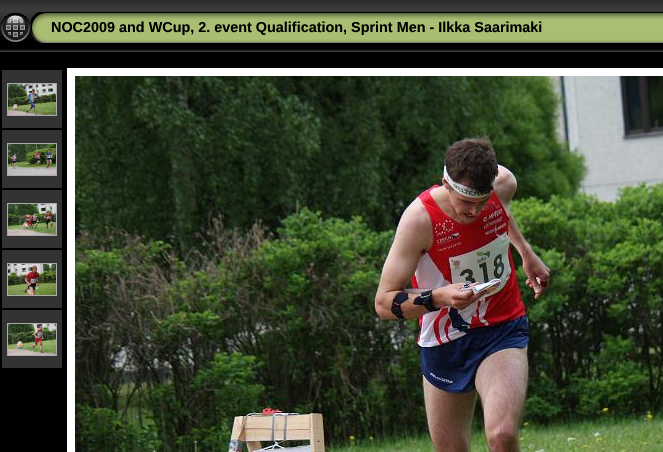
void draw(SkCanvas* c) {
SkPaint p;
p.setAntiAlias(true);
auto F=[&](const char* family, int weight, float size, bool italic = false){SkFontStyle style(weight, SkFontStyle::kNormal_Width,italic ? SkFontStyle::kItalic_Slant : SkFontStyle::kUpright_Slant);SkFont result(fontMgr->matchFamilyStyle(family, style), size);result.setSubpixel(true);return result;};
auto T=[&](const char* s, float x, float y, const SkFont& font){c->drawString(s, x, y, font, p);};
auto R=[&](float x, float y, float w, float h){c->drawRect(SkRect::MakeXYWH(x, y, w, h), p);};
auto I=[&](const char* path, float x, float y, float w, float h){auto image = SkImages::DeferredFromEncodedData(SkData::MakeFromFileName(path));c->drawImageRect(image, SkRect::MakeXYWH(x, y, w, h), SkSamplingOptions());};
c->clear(0xff000000);
I("1.png",0,0,663,52);
I("2.png",1,13,29,29);
I("3.png",31,12,20,31);
I("4.png",51,12,612,31);
auto f1 = F("Liberation Sans",700,14.4);
p.setColor(0xff000000);
T("NOC2009 and WCup, 2. event Qualification, Sprint Men - Ilkka Saarimaki",51,32,f1);
p.setColor(0xff333333);
R(2,70,60,58);
p.setStroke(true);
p.setStrokeWidth(1);
p.setColor(0xffaaaaaa);
c->drawRect(SkRect::MakeXYWH(7.5,83.5,49,32),p);
I("5.png",8,84,48,31);
p.setStroke(false);
p.setColor(0xff333333);
R(2,130,60,58);
p.setStroke(true);
p.setColor(0xffaaaaaa);
c->drawRect(SkRect::MakeXYWH(7.5,143.5,49,32),p);
I("6.png",8,144,48,31);
p.setStroke(false);
p.setColor(0xff333333);
R(2,190,60,58);
p.setStroke(true);
p.setColor(0xffaaaaaa);
c->drawRect(SkRect::MakeXYWH(7.5,203.5,49,32),p);
I("7.png",8,204,48,31);
p.setStroke(false);
p.setColor(0xff333333);
R(2,250,60,58);
p.setStroke(true);
p.setColor(0xffaaaaaa);
c->drawRect(SkRect::MakeXYWH(7.5,263.5,49,32),p);
I("8.png",8,264,48,31);
p.setStroke(false);
p.setColor(0xff333333);
R(2,310,60,58);
p.setStroke(true);
p.setColor(0xffaaaaaa);
c->drawRect(SkRect::MakeXYWH(7.5,323.5,49,32),p);
I("9.png",8,324,48,31);
p.setStrokeWidth(8);
p.setColor(0xffffffff);
c->drawRect(SkRect::MakeXYWH(71,72,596,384),p);
I("10.png",75,76,588,376);
}
